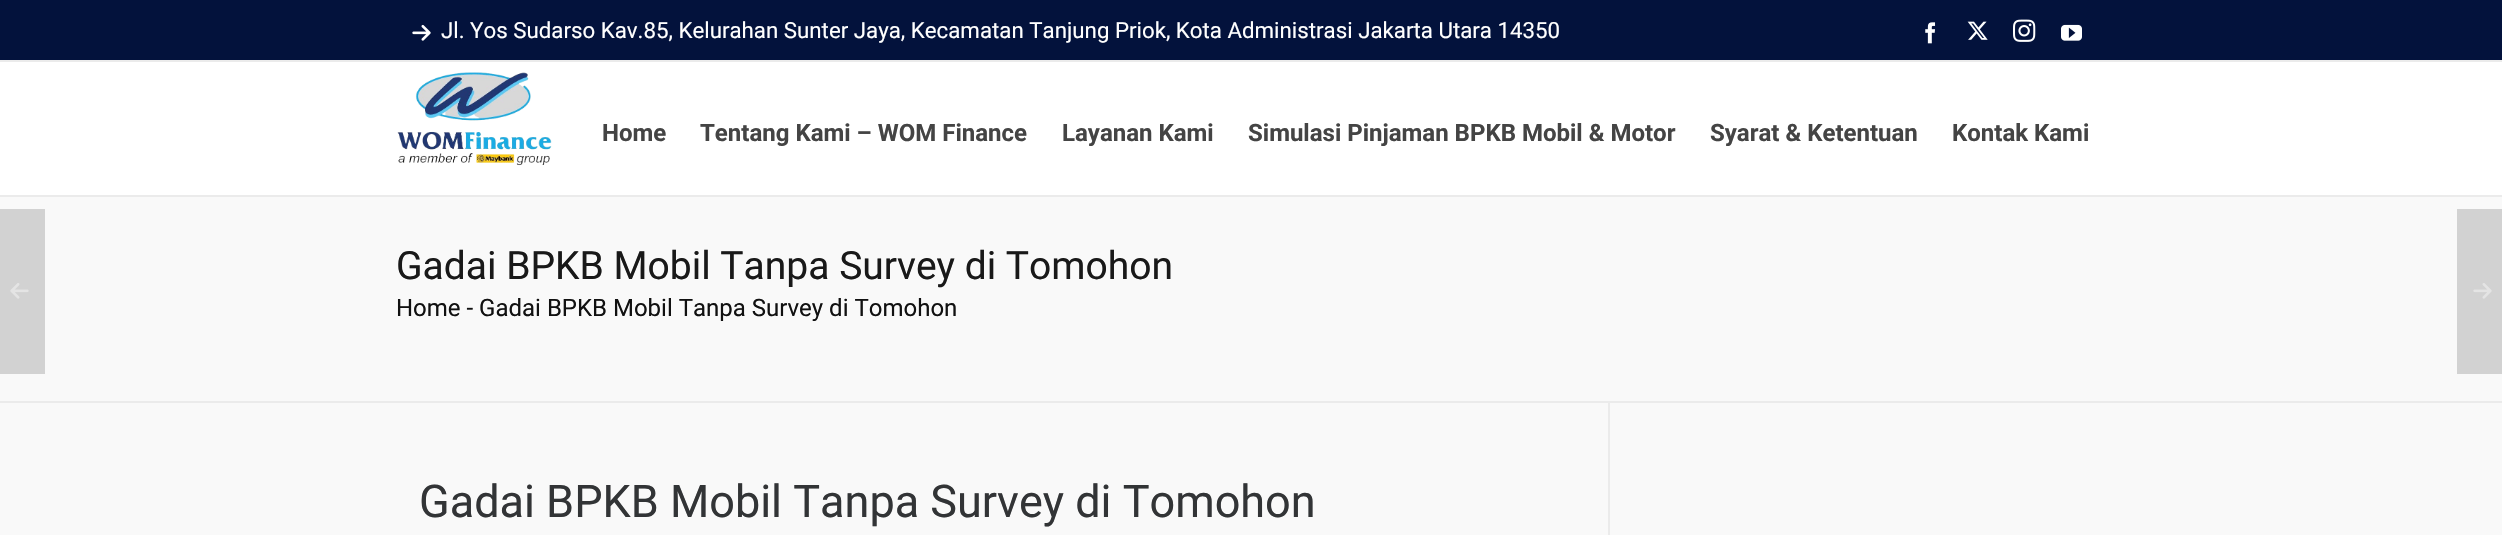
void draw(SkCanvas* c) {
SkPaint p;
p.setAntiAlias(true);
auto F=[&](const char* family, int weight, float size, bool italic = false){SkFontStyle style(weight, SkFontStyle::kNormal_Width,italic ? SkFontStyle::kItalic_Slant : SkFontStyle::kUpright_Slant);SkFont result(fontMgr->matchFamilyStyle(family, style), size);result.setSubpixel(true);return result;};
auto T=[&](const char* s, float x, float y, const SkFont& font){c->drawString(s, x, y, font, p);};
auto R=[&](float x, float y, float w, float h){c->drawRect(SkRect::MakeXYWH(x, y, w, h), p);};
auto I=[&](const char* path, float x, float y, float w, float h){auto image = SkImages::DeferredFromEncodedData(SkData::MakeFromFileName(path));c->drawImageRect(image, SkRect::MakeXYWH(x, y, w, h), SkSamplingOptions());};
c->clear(0xfff9f9f9);
p.setColor(0xff03123c);
R(0,0,2502,60);
p.setColor(0xffebebeb);
R(0,60,2502,2);
I("1.png",412,24,19,17);
auto f1 = F("Roboto",400,22.28);
p.setColor(0xffffffff);
T("Jl. Yos Sudarso Kav.85, Kelurahan Sunter Jaya, Kecamatan Tanjung Priok, Kota Administrasi Jakarta Utara 14350",441,38,f1);
I("2.png",1925,22,11,22);
I("3.png",1967,21,21,19);
I("4.png",2013,19,23,23);
I("5.png",2061,24,21,17);
R(0,62,2502,133);
p.setColor(0xffebebeb);
R(0,195,2502,2);
I("6.png",397,72,155,94);
auto f2 = F("Roboto",700,24);
p.setColor(0xff444444);
T("Home",602,141,f2);
T("Tentang Kami – WOM Finance",700,141,f2);
T("Layanan Kami",1062,141,f2);
T("Simulasi Pinjaman BPKB Mobil & Motor",1248,141,f2);
T("Syarat & Ketentuan",1710,141,f2);
T("Kontak Kami",1952,141,f2);
p.setColor(0xffd2d2d2);
R(0,209,45,165);
I("7.png",10,283,19,16);
R(2457,209,45,165);
I("8.png",2473,283,19,16);
p.setColor(0xffebebeb);
R(0,401,2502,2);
auto f3 = F("Roboto",400,39);
p.setColor(0xff191919);
T("Gadai BPKB Mobil Tanpa Survey di Tomohon",396,279,f3);
auto f4 = F("Roboto",400,24);
p.setColor(0xff111111);
T("Home - Gadai BPKB Mobil Tanpa Survey di Tomohon",396,316,f4);
auto f5 = F("Roboto",400,45);
p.setColor(0xff323436);
T("Gadai BPKB Mobil Tanpa Survey di Tomohon",419,517,f5);
p.setColor(0xffebebeb);
R(1608,401,2,134);
}
